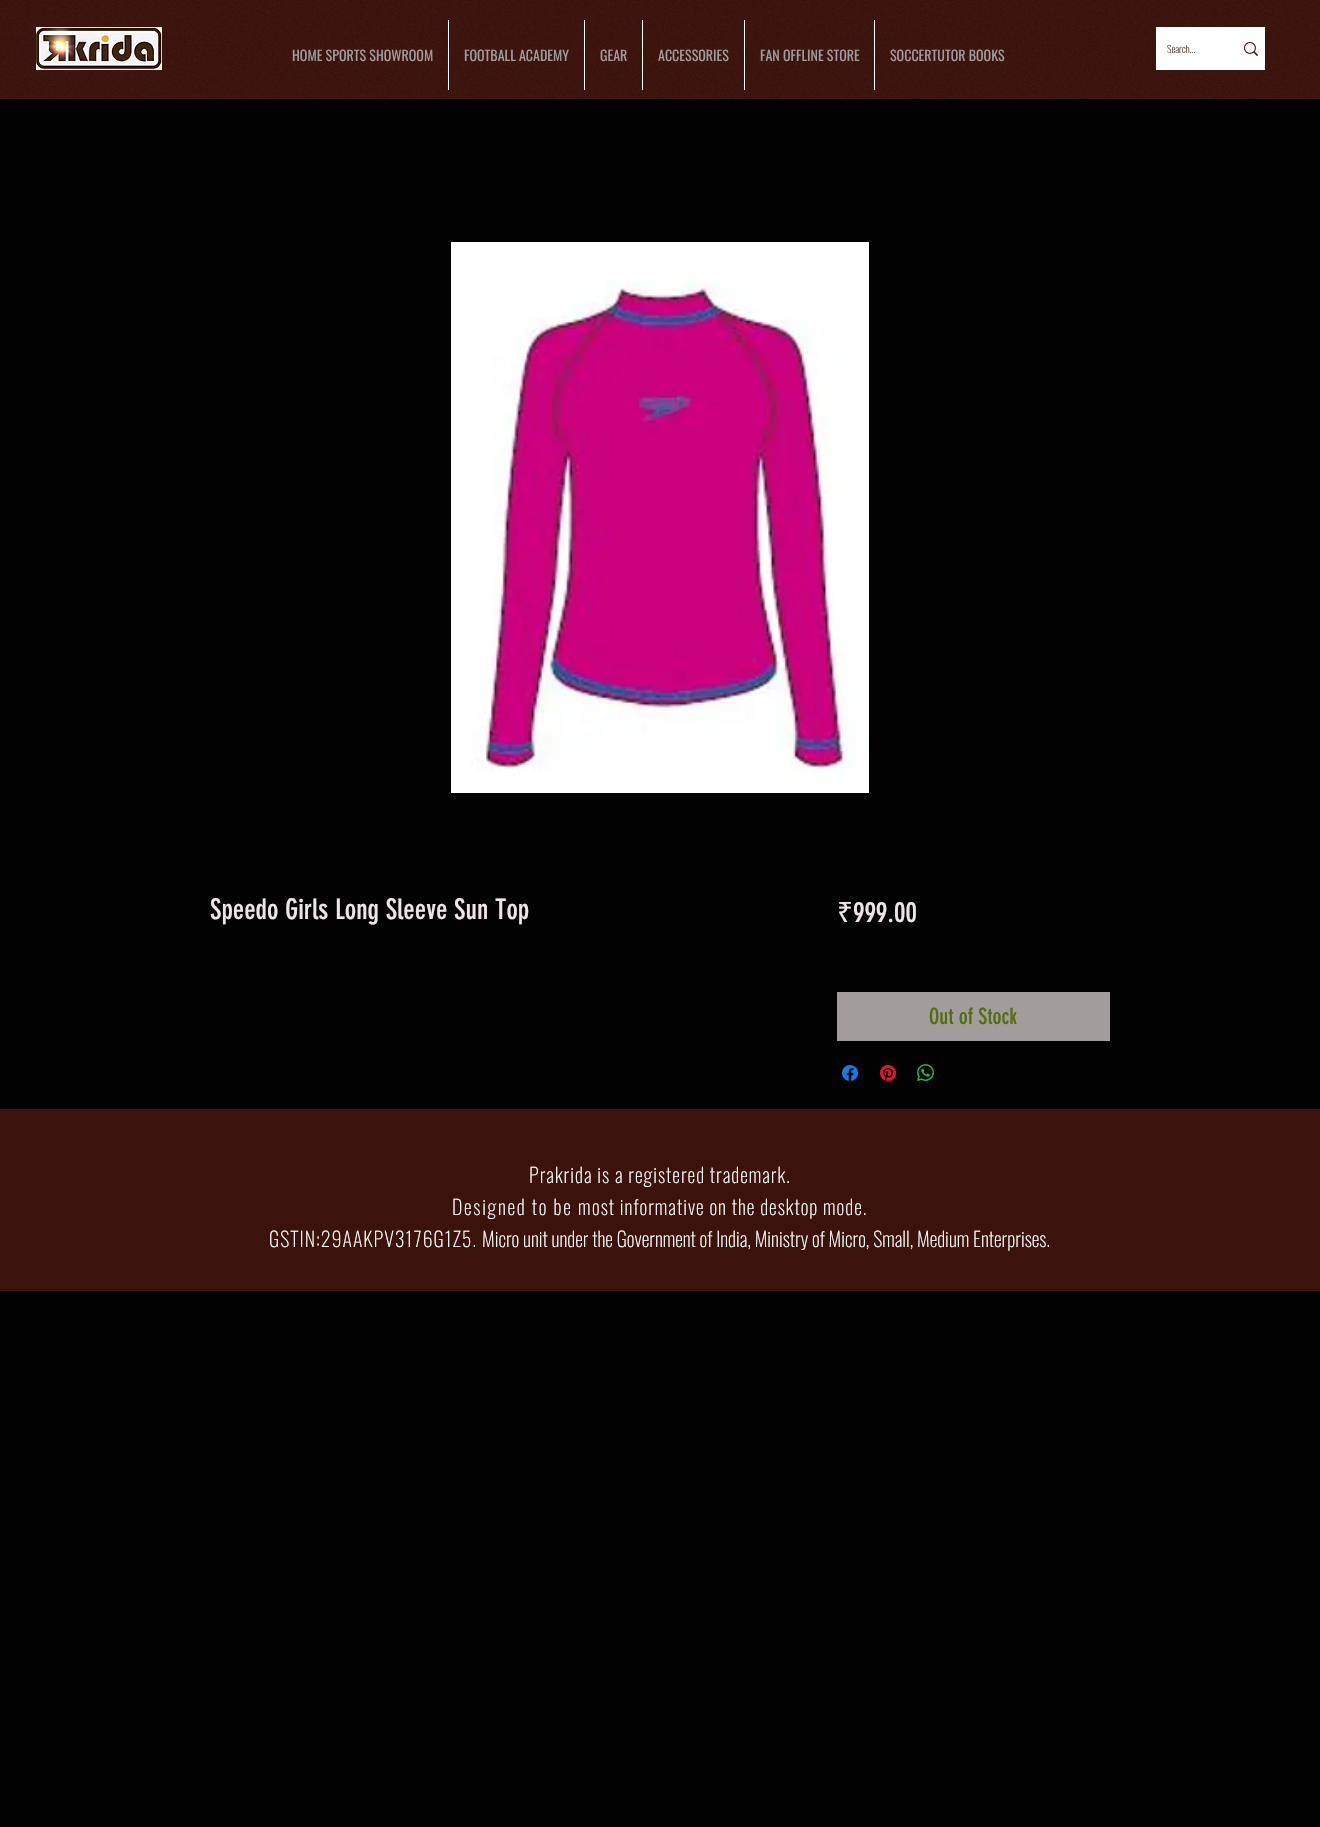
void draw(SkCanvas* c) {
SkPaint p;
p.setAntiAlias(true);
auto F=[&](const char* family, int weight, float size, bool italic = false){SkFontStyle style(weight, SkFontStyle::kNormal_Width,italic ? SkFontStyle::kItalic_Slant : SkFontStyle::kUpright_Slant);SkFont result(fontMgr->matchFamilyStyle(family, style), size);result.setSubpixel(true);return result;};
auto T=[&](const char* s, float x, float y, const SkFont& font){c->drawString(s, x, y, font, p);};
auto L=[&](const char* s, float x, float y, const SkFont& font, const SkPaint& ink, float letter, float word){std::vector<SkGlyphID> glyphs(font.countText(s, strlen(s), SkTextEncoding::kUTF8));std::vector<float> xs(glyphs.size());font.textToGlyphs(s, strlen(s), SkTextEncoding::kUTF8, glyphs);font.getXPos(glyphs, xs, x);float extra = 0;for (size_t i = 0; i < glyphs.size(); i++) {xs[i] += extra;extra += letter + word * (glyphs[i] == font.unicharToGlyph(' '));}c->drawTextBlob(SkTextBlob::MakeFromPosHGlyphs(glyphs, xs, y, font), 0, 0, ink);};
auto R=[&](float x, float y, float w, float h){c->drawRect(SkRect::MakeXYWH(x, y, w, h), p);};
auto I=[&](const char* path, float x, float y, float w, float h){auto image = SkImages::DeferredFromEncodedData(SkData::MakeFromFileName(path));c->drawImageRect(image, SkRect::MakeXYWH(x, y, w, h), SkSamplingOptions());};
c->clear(0xff020202);
p.setColor(0xff3b130b);
R(0,0,1320,99);
I("1.png",0,0,1320,99);
auto f1 = F("Oswald",400,14);
p.setColor(0xffa29c9c);
T("HOME SPORTS SHOWROOM",292,61,f1);
p.setColor(0xffffffff);
R(448,20,1,70);
p.setColor(0xffa29c9c);
T("FOOTBALL ACADEMY",464,61,f1);
p.setColor(0xffffffff);
R(584,20,1,70);
p.setColor(0xffa29c9c);
T("GEAR",600,61,f1);
p.setColor(0xffffffff);
R(642,20,1,70);
p.setColor(0xffa29c9c);
T("ACCESSORIES",658,61,f1);
p.setColor(0xffffffff);
R(744,20,1,70);
p.setColor(0xffa29c9c);
T("FAN OFFLINE STORE",760,61,f1);
p.setColor(0xffffffff);
R(874,20,1,70);
p.setColor(0xffa29c9c);
T("SOCCERTUTOR BOOKS",890,61,f1);
I("2.png",36,27,126,43);
p.setStroke(true);
p.setStrokeWidth(3);
p.setColor(0xffffffff);
c->drawRect(SkRect::MakeXYWH(1157.5,28.5,106,40),p);
p.setStroke(false);
R(1159,30,103,37);
auto f2 = F("Oswald",200,10);
p.setColor(0xff3b130b);
T("Search...",1167,53,f2);
I("3.png",1244,42,14,14);
I("4.png",451,242,418,551);
auto f3 = F("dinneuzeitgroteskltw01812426",400,28);
p.setColor(0xffeee6e6);
T("Speedo Girls Long Sleeve Sun Top",210,919,f3);
auto f4 = F("Noto Sans",400,28);
T("₹",837,922,f4);
T("999.00",853,922,f3);
p.setColor(0xffa29c9c);
R(837,992,273,49);
auto f5 = F("dinneuzeitgroteskltw01812426",400,22);
p.setColor(0xff556d0e);
T("Out of Stock",929,1024,f5);
I("5.png",842,1065,16,16);
I("6.png",880,1065,16,16);
I("7.png",917,1064,17,17);
p.setColor(0xff3b130b);
R(0,1109,1320,182);
auto f6 = F("Oswald",200,20);
p.setColor(0xffffffff);
L("Prakrida is a registered trademark.",529,1183,f6,p,1,0);
L("Designed to be m",452,1215,f6,p,1.7,0);
L("ost informative on the desktop mode.",592,1215,f6,p,1,0);
L("GSTIN:29AAKPV3176G1Z5.",269,1247,f6,p,1,0);
T("Micro unit under the Government of India, Ministry of Micro, Small, Medium Enterprises.",482,1247,f6);
}
